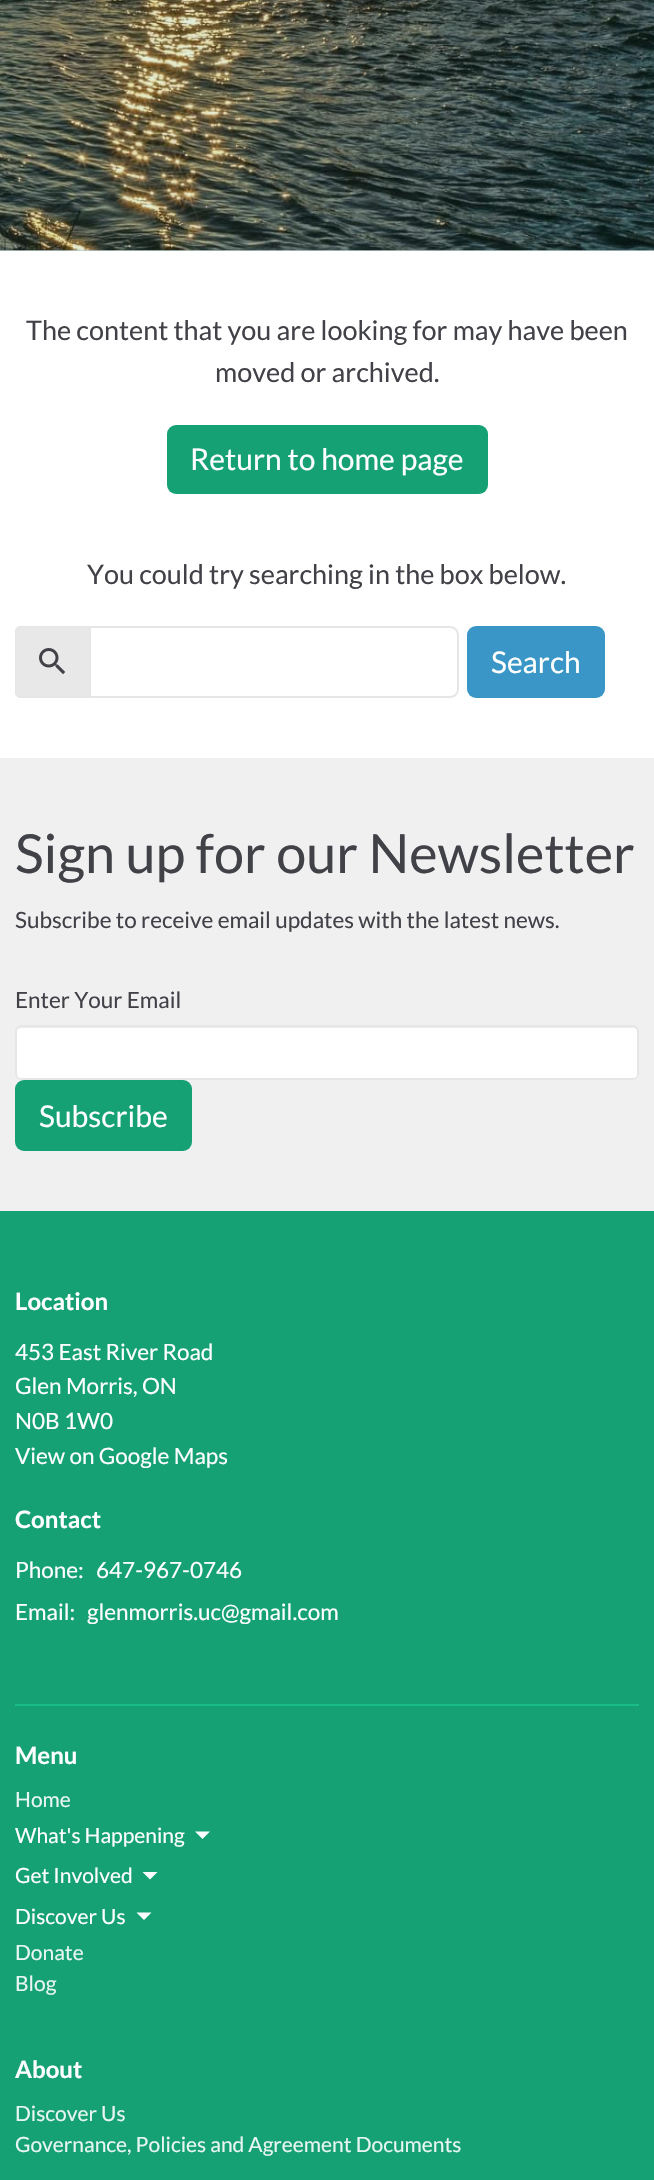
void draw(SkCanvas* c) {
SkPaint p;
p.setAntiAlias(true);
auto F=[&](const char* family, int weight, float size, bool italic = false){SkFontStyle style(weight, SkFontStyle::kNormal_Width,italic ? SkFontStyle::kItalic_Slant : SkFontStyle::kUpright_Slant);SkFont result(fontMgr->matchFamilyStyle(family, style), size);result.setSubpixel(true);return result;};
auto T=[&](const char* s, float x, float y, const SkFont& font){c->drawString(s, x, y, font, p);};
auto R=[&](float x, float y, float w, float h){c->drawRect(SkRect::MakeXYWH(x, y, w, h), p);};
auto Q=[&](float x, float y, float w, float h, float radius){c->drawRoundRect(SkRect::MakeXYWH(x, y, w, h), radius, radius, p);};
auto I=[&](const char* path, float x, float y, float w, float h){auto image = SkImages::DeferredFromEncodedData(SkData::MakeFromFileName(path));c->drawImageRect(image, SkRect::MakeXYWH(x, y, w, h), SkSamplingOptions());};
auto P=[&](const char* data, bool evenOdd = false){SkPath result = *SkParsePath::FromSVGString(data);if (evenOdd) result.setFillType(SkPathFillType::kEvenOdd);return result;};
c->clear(0xffffffff);
p.setColor(0xffe5f5f0);
R(0,250,654,1);
I("1.png",0,0,654,251);
auto f1 = F("Lato",400,27);
p.setColor(0xff414148);
T("The content that you are looking for may have been",26,340,f1);
T("moved or archived.",215,382,f1);
p.setColor(0xff15a173);
Q(167,425,321,69,9);
auto f2 = F("Lato",400,30);
p.setColor(0xffffffff);
T("Return to home page",190,470,f2);
p.setColor(0xff414148);
T("You could try searching in the box below.",87,584,f1);
p.setColor(0xffe8e8e8);
c->drawPath(P("M21 626h68v72h-68c-3.5 0-6-2.5-6-6v-60c0-3.5 2.5-6 6-6z"),p);
p.setColor(0xffe6e6e6);
c->drawPath(P("M21 626h67v72h-67c-3 0-6-3-6-6v-60c0-4 3-6 6-6zm0 1h67v69h-67c-2 0-5-2-5-4v-60c0-3 3-5 5-5z",true),p);
I("2.png",39,648,27,27);
p.setStroke(true);
p.setStrokeWidth(2);
c->drawPath(P("M90 627h360c4.5 0 8 3.5 8 8v54c0 4.5-3.5 8-8 8h-360z"),p);
p.setStroke(false);
p.setColor(0xff3996c6);
Q(467,626,138,72,9);
p.setColor(0xffffffff);
T("Search",491,673,f2);
p.setColor(0xfff0f0f0);
R(0,758,654,453);
auto f3 = F("Lato",400,54);
p.setColor(0xff414148);
T("Sign up for our Newsletter",15,873,f3);
auto f4 = F("Lato",400,22.5);
T("Subscribe to receive email updates with the latest news.",15,928,f4);
T("Enter Your Email",15,1008,f4);
p.setColor(0xffffffff);
Q(15,1025,624,55,6);
p.setColor(0xffececec);
c->drawPath(P("M21 1028h612c2 0 5 2 5 4v-1c0-3-2-5-5-5h-611c-2 0-4 2-5 4c1-1 3-2 4-2z"),p);
p.setStroke(true);
p.setColor(0xffe6e6e6);
c->drawRoundRect(SkRect::MakeXYWH(16,1026,622,53),5,5,p);
p.setStroke(false);
p.setColor(0xff15a173);
Q(15,1080,177,71,9);
p.setColor(0xffffffff);
T("Subscribe",39,1127,f2);
p.setColor(0xff15a173);
R(0,1211,654,969);
auto f5 = F("Lato",700,24);
p.setColor(0xffffffff);
T("Location",15,1310,f5);
T("453 East River Road",15,1360,f4);
T("Glen Morris, ON",15,1394,f4);
T("N0B 1W0",15,1429,f4);
T("View on Google Maps",15,1464,f4);
T("Contact",15,1528,f5);
T("Phone:",15,1578,f4);
T("647-967-0746",96,1578,f4);
T("Email:",15,1620,f4);
T("glenmorris.uc@gmail.com",87,1620,f4);
p.setColor(0xff19bc86);
R(15,1704,624,2);
p.setColor(0xffffffff);
T("Menu",15,1764,f5);
auto f6 = F("Lato",400,21);
p.setColor(0xffe8f6f1);
T("Home",15,1807,f6);
p.setColor(0xffffffff);
T("What's Happening",15,1843,f6);
c->drawPath(P("M195 1831.5l7.5 7.5l7.5-7.5z"),p);
T("Get Involved",15,1883,f6);
c->drawPath(P("M142.5 1872l7.5 7.5l7.5-7.5zm-6 40.5l7.5 7.5l7.5-7.5z"),p);
T("Discover Us",15,1924,f6);
p.setColor(0xffe8f6f1);
T("Donate",15,1960,f6);
T("Blog",15,1991,f6);
p.setColor(0xffffffff);
T("About",15,2078,f5);
p.setColor(0xffe8f6f1);
T("Discover Us",15,2121,f6);
T("Governance, Policies and Agreement Documents",15,2152,f6);
}
